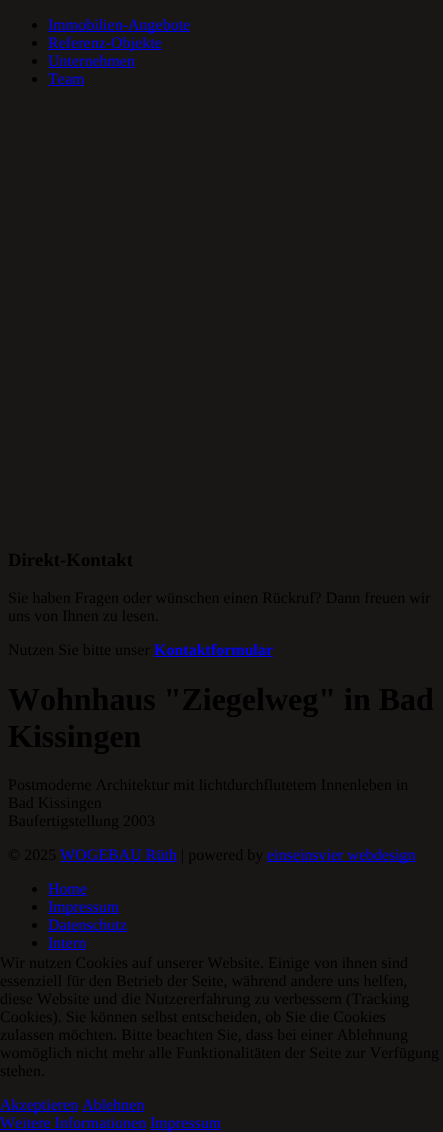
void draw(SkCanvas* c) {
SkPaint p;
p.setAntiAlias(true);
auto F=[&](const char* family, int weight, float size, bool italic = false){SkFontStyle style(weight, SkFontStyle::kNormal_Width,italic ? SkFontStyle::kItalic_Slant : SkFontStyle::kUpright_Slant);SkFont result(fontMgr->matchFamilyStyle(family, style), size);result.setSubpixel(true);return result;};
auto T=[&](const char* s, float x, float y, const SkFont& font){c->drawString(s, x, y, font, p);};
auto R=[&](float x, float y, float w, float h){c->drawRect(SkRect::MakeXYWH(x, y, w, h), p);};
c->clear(0xff191716);
p.setColor(0xff000000);
c->drawCircle(34.5,25.5,2.5,p);
p.setColor(0xff0000ee);
R(48,31,142,1);
auto f1 = F("Liberation Serif",400,16);
T("Immobilien-Angebote",48,30,f1);
p.setColor(0xff000000);
c->drawCircle(34.5,43.5,2.5,p);
p.setColor(0xff0000ee);
R(48,49,114,1);
T("Referenz-Objekte",48,48,f1);
p.setColor(0xff000000);
c->drawCircle(34.5,61.5,2.5,p);
p.setColor(0xff0000ee);
T("Unternehmen",48,66,f1);
R(48,67,87,1);
p.setColor(0xff000000);
c->drawCircle(34.5,79.5,2.5,p);
p.setColor(0xff0000ee);
T("Team",48,84,f1);
R(48,85,36,1);
auto f2 = F("Liberation Serif",700,18.75);
p.setColor(0xff000000);
T("Direkt-Kontakt",8,566,f2);
T("Sie haben Fragen oder wünschen einen Rückruf? Dann freuen wir",8,603,f1);
T("uns von Ihnen zu lesen.",8,621,f1);
T("Nutzen Sie bitte unser",8,655,f1);
auto f3 = F("Liberation Serif",700,16);
p.setColor(0xff0000ee);
T("Kontaktformular",154,655,f3);
R(154,656,119,1);
auto f4 = F("Liberation Serif",700,32);
p.setColor(0xff000000);
T("Wohnhaus \"Ziegelweg\" in Bad",8,710,f4);
T("Kissingen",8,747,f4);
T("Postmoderne Architektur mit lichtdurchflutetem Innenleben in",8,790,f1);
T("Bad Kissingen",8,808,f1);
T("Baufertigstellung 2003",8,826,f1);
T("© 2025",8,860,f1);
p.setColor(0xff0000ee);
T("WOGEBAU Rüth",60,860,f1);
R(60,861,117,1);
p.setColor(0xff000000);
T("| powered by",181,860,f1);
p.setColor(0xff0000ee);
R(267,861,149,1);
T("einseinsvier webdesign",267,860,f1);
p.setColor(0xff000000);
c->drawCircle(34.5,889.5,2.5,p);
p.setColor(0xff0000ee);
T("Home",48,894,f1);
R(48,895,39,1);
p.setColor(0xff000000);
c->drawCircle(34.5,907.5,2.5,p);
p.setColor(0xff0000ee);
R(48,913,71,1);
T("Impressum",48,912,f1);
p.setColor(0xff000000);
c->drawCircle(34.5,925.5,2.5,p);
p.setColor(0xff0000ee);
T("Datenschutz",48,930,f1);
R(48,931,79,1);
p.setColor(0xff000000);
c->drawCircle(34.5,943.5,2.5,p);
p.setColor(0xff0000ee);
T("Intern",48,948,f1);
R(48,949,38,1);
p.setColor(0xff000000);
T("Wir nutzen Cookies auf unserer Website. Einige von ihnen sind",0,968,f1);
T("essenziell für den Betrieb der Seite, während andere uns helfen,",0,986,f1);
T("diese Website und die Nutzererfahrung zu verbessern (Tracking",0,1004,f1);
T("Cookies). Sie können selbst entscheiden, ob Sie die Cookies",0,1022,f1);
T("zulassen möchten. Bitte beachten Sie, dass bei einer Ablehnung",0,1040,f1);
T("womöglich nicht mehr alle Funktionalitäten der Seite zur Verfügung",0,1058,f1);
T("stehen.",0,1076,f1);
p.setColor(0xff0000ee);
R(0,1111,78,1);
T("Akzeptieren Ablehnen",0,1110,f1);
R(82,1111,62,1);
T("Weitere Informationen",0,1128,f1);
R(0,1129,146,1);
R(150,1129,71,1);
T("Impressum",150,1128,f1);
}
